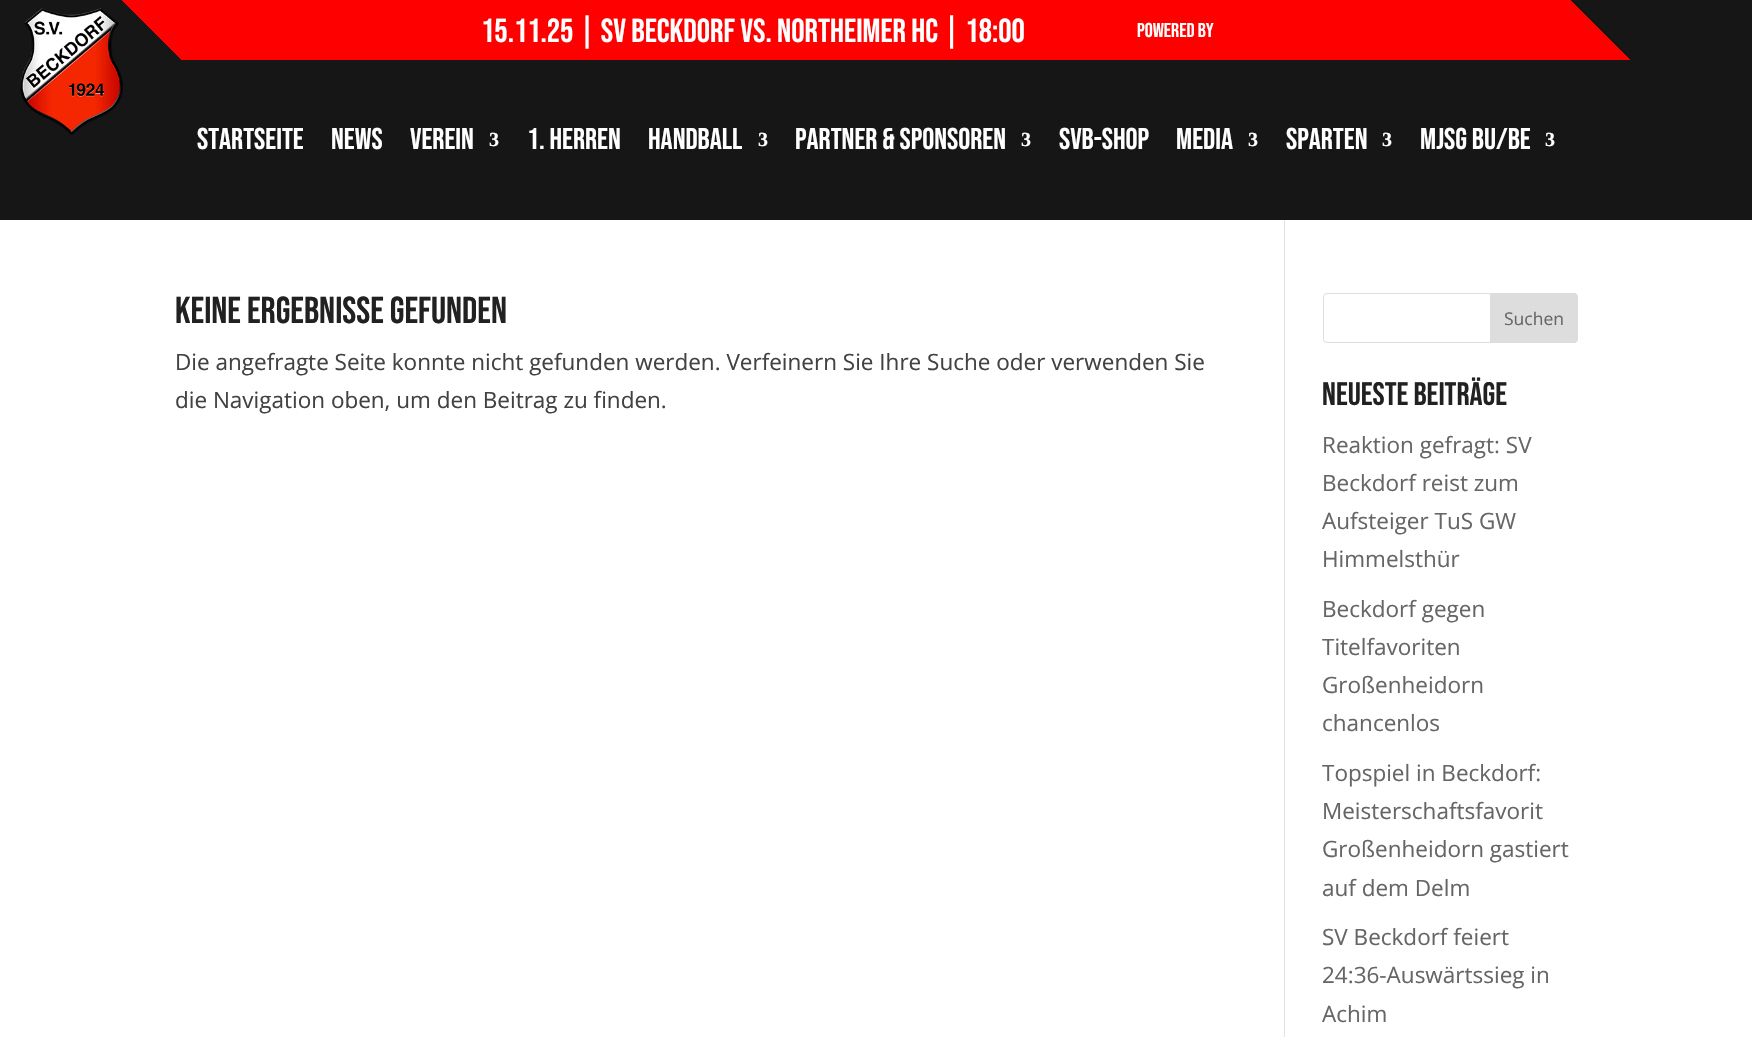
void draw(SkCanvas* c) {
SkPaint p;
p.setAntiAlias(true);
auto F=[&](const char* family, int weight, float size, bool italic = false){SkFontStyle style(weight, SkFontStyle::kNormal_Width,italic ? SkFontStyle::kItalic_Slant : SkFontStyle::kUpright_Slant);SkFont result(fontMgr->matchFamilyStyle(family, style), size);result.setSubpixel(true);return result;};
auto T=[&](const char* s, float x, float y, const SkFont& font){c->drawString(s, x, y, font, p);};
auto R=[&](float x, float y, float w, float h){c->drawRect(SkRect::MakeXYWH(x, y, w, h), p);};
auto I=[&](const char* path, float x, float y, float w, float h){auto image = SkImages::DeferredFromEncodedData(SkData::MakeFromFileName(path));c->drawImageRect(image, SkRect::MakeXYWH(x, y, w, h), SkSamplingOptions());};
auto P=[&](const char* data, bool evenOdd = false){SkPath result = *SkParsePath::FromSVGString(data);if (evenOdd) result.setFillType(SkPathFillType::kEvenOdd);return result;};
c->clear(0xff161616);
{
const SkColor colors[] = {0xff161616,0xff161616,0xffff0000,0xffff0000,0xff161616};
const float stops[] = {0,.1,.1,.9,.9};
const SkPoint ends[] = {{423,483}, {1329,-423}};
p.setShader(SkGradientShader::MakeLinear(ends, colors, stops, 5, SkTileMode::kClamp));
p.setAlpha(255);
}
R(122,0,1508,60);
I("1.png",20,8,103,127);
auto f1 = F("Bebas Neue",400,33.3);
p.setShader(nullptr);
p.setColor(0xffffffff);
T("15.11.25 | SV Beckdorf vs. Northeimer HC | 18:00",481,42,f1);
auto f2 = F("Bebas Neue",400,20);
T("powered by",1137,37,f2);
auto f3 = F("Bebas Neue",400,30);
T("Startseite",197,149,f3);
T("News",331,149,f3);
T("Verein",410,149,f3);
auto f4 = F("Liberation Serif",700,20);
T("3",489,146,f4);
T("1. Herren",527,149,f3);
T("Handball",648,149,f3);
T("3",758,146,f4);
T("Partner & Sponsoren",795,149,f3);
T("3",1021,146,f4);
T("SVB-Shop",1059,149,f3);
T("Media",1176,149,f3);
T("3",1248,146,f4);
T("Sparten",1286,149,f3);
T("3",1382,146,f4);
T("MJSG BU/BE",1420,149,f3);
T("3",1545,146,f4);
R(0,220,1752,817);
p.setColor(0xffe2e2e2);
R(1284,220,1,817);
auto f5 = F("Bebas Neue",400,37.5);
p.setColor(0xff212121);
T("Keine Ergebnisse gefunden",175,323,f5);
auto f6 = F("Open Sans",400,22.5);
p.setColor(0xff424242);
T("Die angefragte Seite konnte nicht gefunden werden. Verfeinern Sie Ihre Suche oder verwenden Sie",175,370,f6);
T("die Navigation oben, um den Beitrag zu finden.",175,408,f6);
p.setStroke(true);
p.setStrokeWidth(1);
p.setColor(0xffdddddd);
c->drawRoundRect(SkRect::MakeXYWH(1323.5,293.5,254,49),3.5,3.5,p);
p.setStroke(false);
c->drawPath(P("M1490.5 293.5h83.5c2 0 3.5 1.5 3.5 3.5v42c0 2-1.5 3.5-3.5 3.5h-83.5z"),p);
p.setStroke(true);
c->drawPath(P("M1490.5 293.5h83.5c2 0 3.5 1.5 3.5 3.5v42c0 2-1.5 3.5-3.5 3.5h-83.5z"),p);
auto f7 = F("Open Sans",400,17.5);
p.setStroke(false);
p.setColor(0xff666666);
T("Suchen",1504,325,f7);
auto f8 = F("Bebas Neue",400,32.5);
p.setColor(0xff212121);
T("Neueste Beiträge",1322,405,f8);
p.setColor(0xff666666);
T("Reaktion gefragt: SV",1322,453,f6);
T("Beckdorf reist zum",1322,491,f6);
T("Aufsteiger TuS GW",1322,529,f6);
T("Himmelsthür",1322,567,f6);
T("Beckdorf gegen",1322,617,f6);
T("Titelfavoriten",1322,655,f6);
T("Großenheidorn",1322,693,f6);
T("chancenlos",1322,731,f6);
T("Topspiel in Beckdorf:",1322,781,f6);
T("Meisterschaftsfavorit",1322,819,f6);
T("Großenheidorn gastiert",1322,857,f6);
T("auf dem Delm",1322,896,f6);
T("SV Beckdorf feiert",1322,945,f6);
T("24:36-Auswärtssieg in",1322,983,f6);
T("Achim",1322,1022,f6);
}
